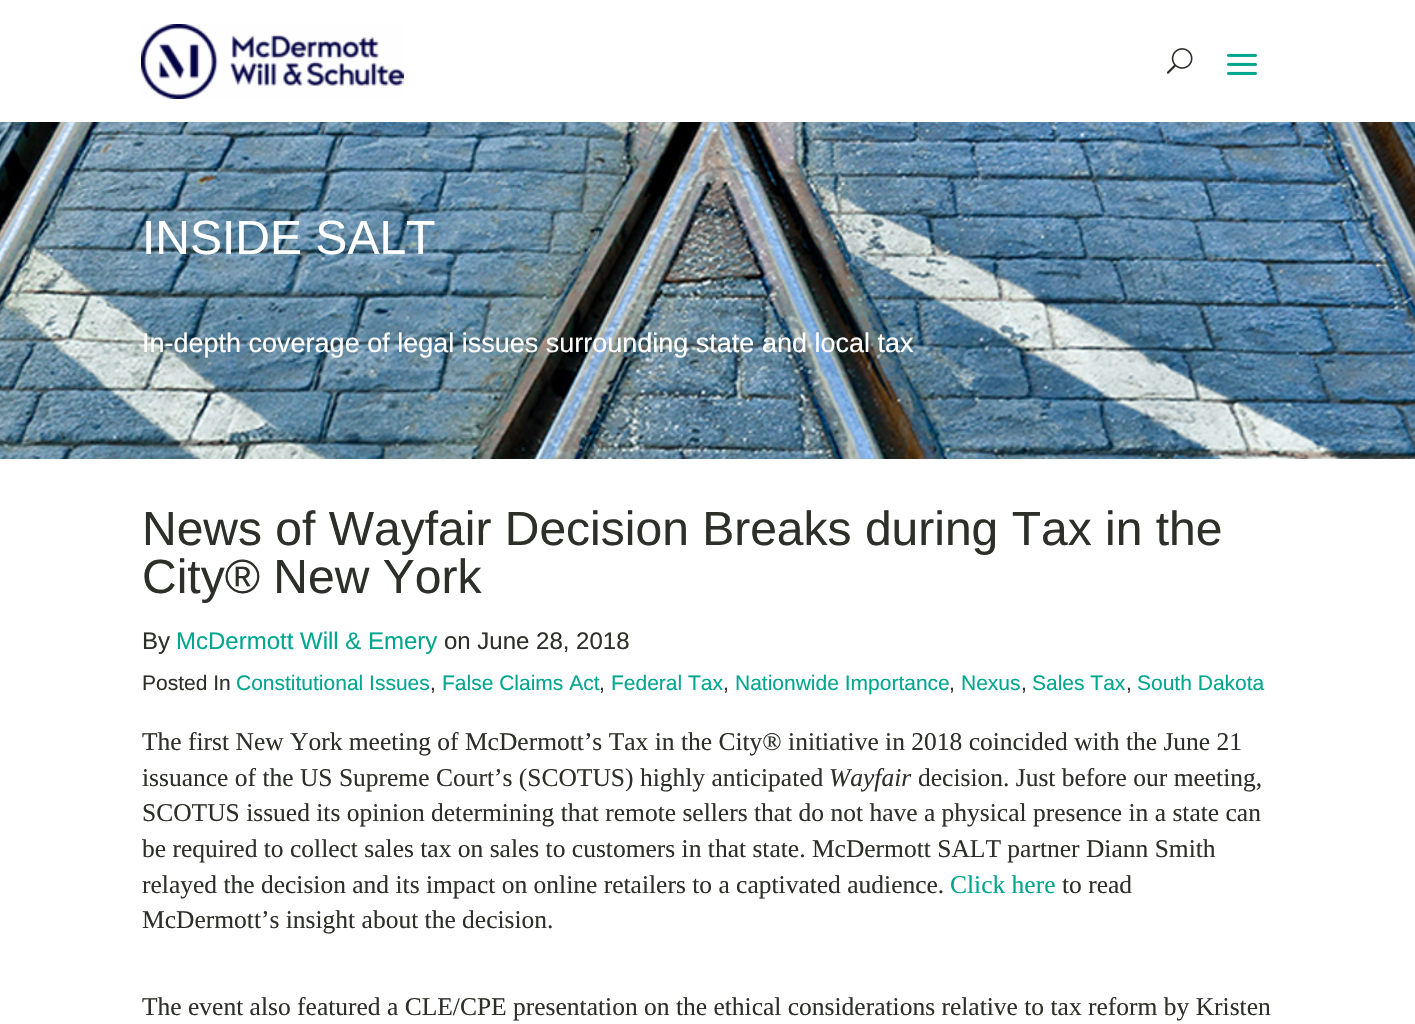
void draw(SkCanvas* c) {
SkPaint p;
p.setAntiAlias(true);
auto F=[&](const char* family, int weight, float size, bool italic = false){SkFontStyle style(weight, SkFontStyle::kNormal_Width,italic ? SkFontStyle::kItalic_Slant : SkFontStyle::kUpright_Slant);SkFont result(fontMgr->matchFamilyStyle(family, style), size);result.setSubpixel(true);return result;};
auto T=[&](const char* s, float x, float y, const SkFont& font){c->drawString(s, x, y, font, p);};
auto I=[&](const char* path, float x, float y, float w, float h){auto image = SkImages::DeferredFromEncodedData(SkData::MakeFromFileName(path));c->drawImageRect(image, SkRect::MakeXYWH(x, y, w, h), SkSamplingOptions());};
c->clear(0xffffffff);
I("1.png",141,24,263,75);
I("2.png",1166,48,27,26);
I("3.png",1227,53,30,22);
I("4.png",0,122,1415,337);
auto f1 = F("Liberation Sans",400,48);
p.setColor(0xffffffff);
T("INSIDE SALT",142,254,f1);
auto f2 = F("Liberation Sans",400,27);
T("In-depth coverage of legal issues surrounding state and local tax",142,352,f2);
p.setColor(0xff2d3028);
T("News of Wayfair Decision Breaks during Tax in the",142,545,f1);
T("City® New York",142,593,f1);
auto f3 = F("Liberation Sans",400,24);
T("By",142,649,f3);
p.setColor(0xff00a68e);
T("McDermott Will & Emery",176,649,f3);
p.setColor(0xff2d3028);
T("on June 28, 2018",444,649,f3);
auto f4 = F("Liberation Sans",400,21);
T("Posted In",142,690,f4);
p.setColor(0xff00a68e);
T("Constitutional Issues",236,690,f4);
p.setColor(0xff2d3028);
T(",",430,690,f4);
p.setColor(0xff00a68e);
T("False Claims Act",442,690,f4);
p.setColor(0xff2d3028);
T(",",599,690,f4);
p.setColor(0xff00a68e);
T("Federal Tax",611,690,f4);
p.setColor(0xff2d3028);
T(",",723,690,f4);
p.setColor(0xff00a68e);
T("Nationwide Importance",735,690,f4);
p.setColor(0xff2d3028);
T(",",949,690,f4);
p.setColor(0xff00a68e);
T("Nexus",961,690,f4);
p.setColor(0xff2d3028);
T(",",1021,690,f4);
p.setColor(0xff00a68e);
T("Sales Tax",1032,690,f4);
p.setColor(0xff2d3028);
T(",",1126,690,f4);
p.setColor(0xff00a68e);
T("South Dakota",1137,690,f4);
auto f5 = F("Liberation Serif",400,25.5);
p.setColor(0xff2d3028);
T("The first New York meeting of McDermott’s Tax in the City® initiative in 2018 coincided with the June 21",142,750,f5);
T("issuance of the US Supreme Court’s (SCOTUS) highly anticipated",142,786,f5);
auto f6 = F("Liberation Serif",400,25.5,true);
T("Wayfair",829,786,f6);
T("decision. Just before our meeting,",918,786,f5);
T("SCOTUS issued its opinion determining that remote sellers that do not have a physical presence in a state can",142,821,f5);
T("be required to collect sales tax on sales to customers in that state. McDermott SALT partner Diann Smith",142,857,f5);
T("relayed the decision and its impact on online retailers to a captivated audience.",142,893,f5);
p.setColor(0xff00a68e);
T("Click here",950,893,f5);
p.setColor(0xff2d3028);
T("to read",1062,893,f5);
T("McDermott’s insight about the decision.",142,928,f5);
T("The event also featured a CLE/CPE presentation on the ethical considerations relative to tax reform by Kristen",142,1015,f5);
}
